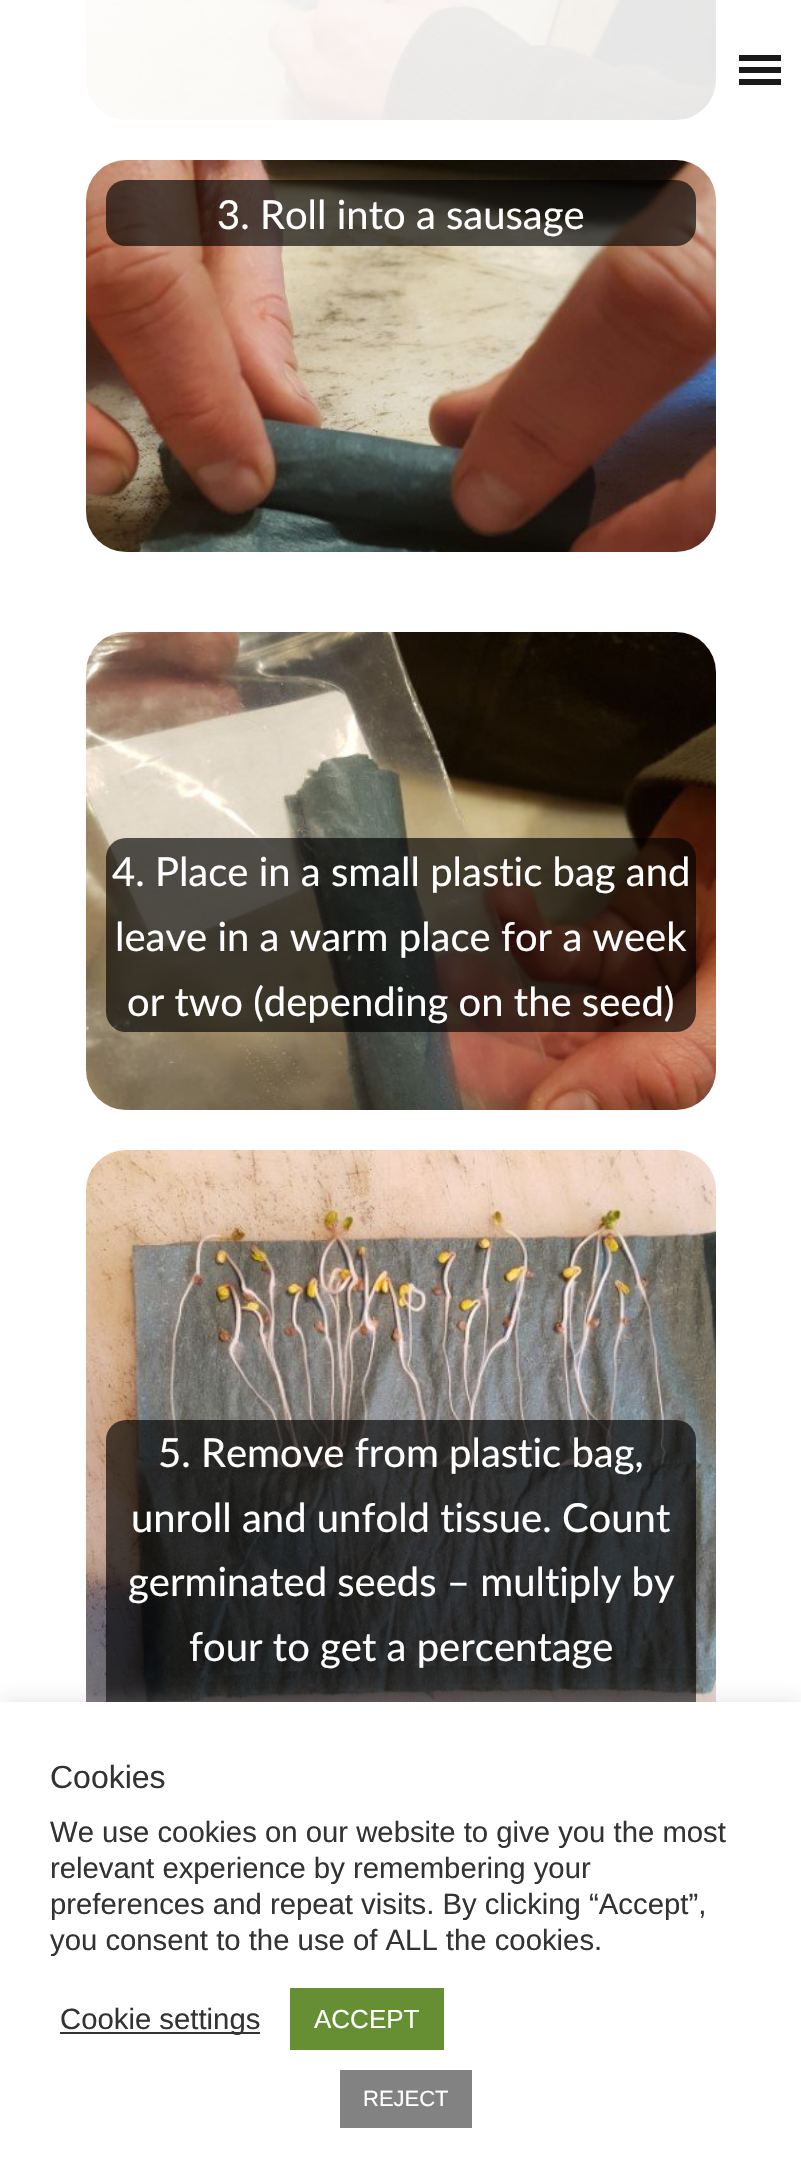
void draw(SkCanvas* c) {
SkPaint p;
p.setAntiAlias(true);
auto F=[&](const char* family, int weight, float size, bool italic = false){SkFontStyle style(weight, SkFontStyle::kNormal_Width,italic ? SkFontStyle::kItalic_Slant : SkFontStyle::kUpright_Slant);SkFont result(fontMgr->matchFamilyStyle(family, style), size);result.setSubpixel(true);return result;};
auto T=[&](const char* s, float x, float y, const SkFont& font){c->drawString(s, x, y, font, p);};
auto R=[&](float x, float y, float w, float h){c->drawRect(SkRect::MakeXYWH(x, y, w, h), p);};
auto Q=[&](float x, float y, float w, float h, float radius){c->drawRoundRect(SkRect::MakeXYWH(x, y, w, h), radius, radius, p);};
auto I=[&](const char* path, float x, float y, float w, float h){auto image = SkImages::DeferredFromEncodedData(SkData::MakeFromFileName(path));c->drawImageRect(image, SkRect::MakeXYWH(x, y, w, h), SkSamplingOptions());};
auto P=[&](const char* data, bool evenOdd = false){SkPath result = *SkParsePath::FromSVGString(data);if (evenOdd) result.setFillType(SkPathFillType::kEvenOdd);return result;};
c->clear(0xffffffff);
I("1.png",86,0,630,120);
p.setColor(0xe6ffffff);
Q(0,0,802,140,4);
p.setColor(0xff1a1a1a);
c->drawPath(P("M739 85h42v-6h-42zm0-30v6h42v-6zm0 18h42v-6h-42z"),p);
I("2.png",86,160,630,392);
p.setColor(0xa6000000);
Q(106,180,590,66,20);
auto f1 = F("Lato",400,40);
p.setColor(0xffffffff);
T("3. Roll into a sausage",217,229,f1);
I("3.png",86,632,630,478);
p.setColor(0xa6000000);
Q(106,838,590,194,20);
p.setColor(0xffffffff);
T("4. Place in a small plastic bag and",112,886,f1);
T("leave in a warm place for a week",115,951,f1);
T("or two (depending on the seed)",127,1016,f1);
I("4.png",86,1150,630,552);
p.setColor(0xa6000000);
Q(106,1420,590,322,20);
p.setColor(0xffffffff);
T("5. Remove from plastic bag,",158,1467,f1);
T("unroll and unfold tissue. Count",131,1532,f1);
T("germinated seeds – multiply by",128,1596,f1);
T("four to get a percentage",189,1661,f1);
p.setColor(0x4dacabab);
p.setMaskFilter(SkMaskFilter::MakeBlur(kNormal_SkBlurStyle, 10));
c->drawRect(SkRect::MakeXYWH(0,1700,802,476),p);
p.setMaskFilter(nullptr);
p.setColor(0xffffffff);
R(0,1702,801,475);
auto f2 = F("Liberation Sans",400,32);
p.setColor(0xff333333);
T("Cookies",50,1788,f2);
auto f3 = F("Liberation Sans",400,29.3);
T("We use cookies on our website to give you the most",50,1842,f3);
T("relevant experience by remembering your",50,1878,f3);
T("preferences and repeat visits. By clicking “Accept”,",50,1914,f3);
T("you consent to the use of ALL the cookies.",50,1950,f3);
R(60,2032,200,2);
T("Cookie settings",60,2029,f3);
p.setColor(0xff668e32);
R(290,1988,154,62);
auto f4 = F("Liberation Sans",400,26);
p.setColor(0xffffffff);
T("ACCEPT",314,2028,f4);
p.setColor(0xff828282);
R(340,2070,132,58);
auto f5 = F("Liberation Sans",400,22);
p.setColor(0xffffffff);
T("REJECT",363,2106,f5);
}
